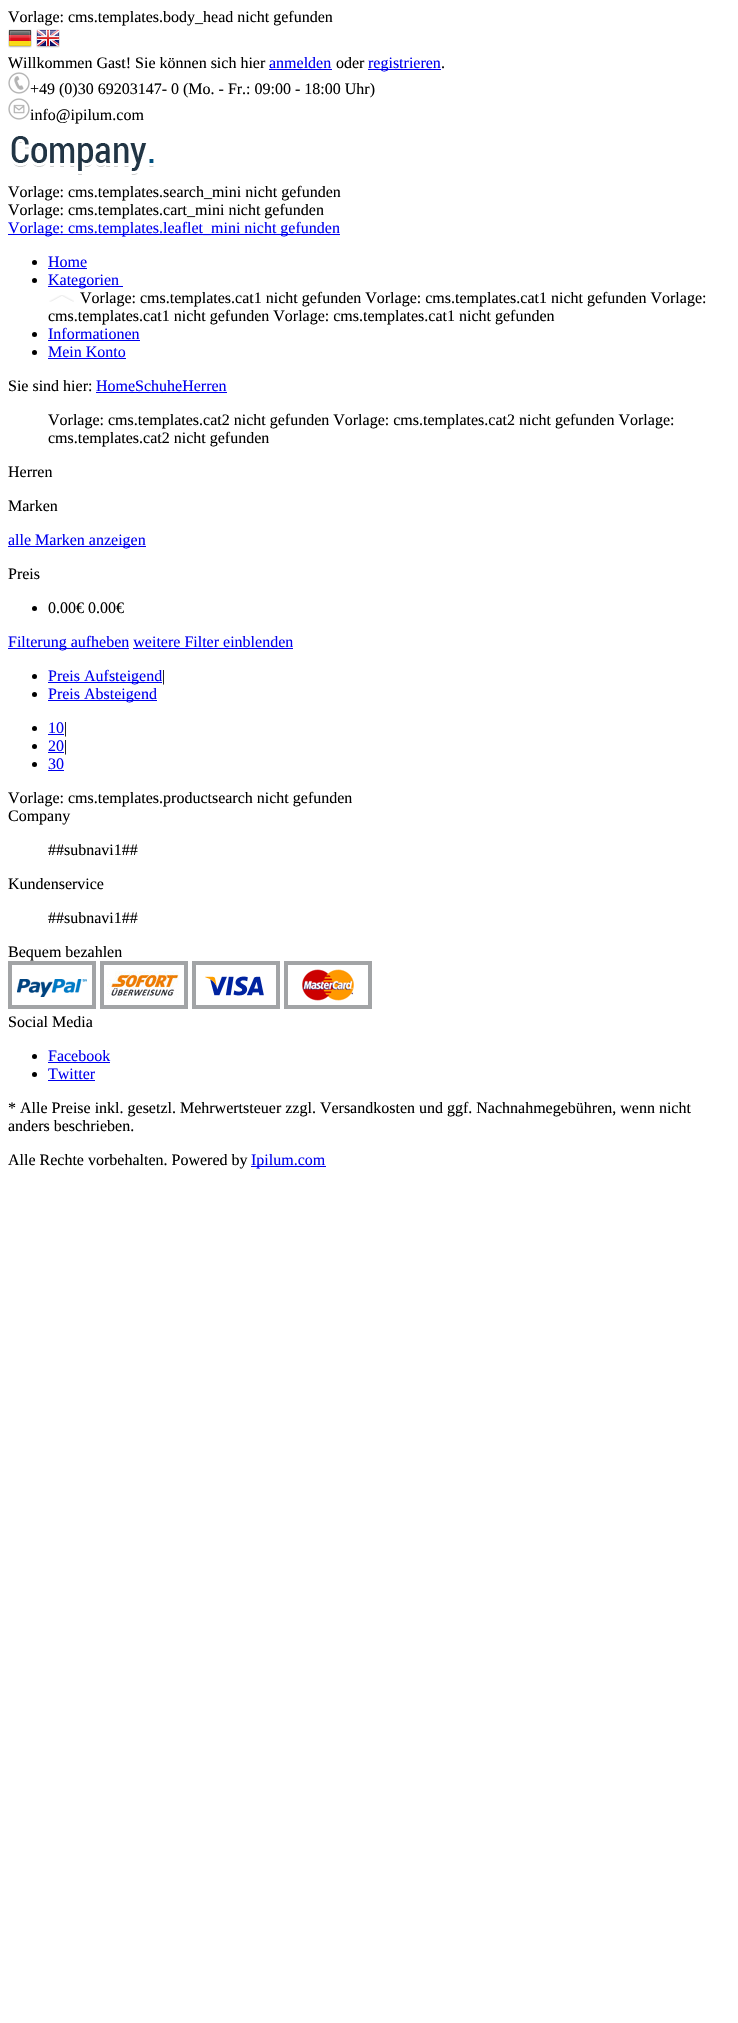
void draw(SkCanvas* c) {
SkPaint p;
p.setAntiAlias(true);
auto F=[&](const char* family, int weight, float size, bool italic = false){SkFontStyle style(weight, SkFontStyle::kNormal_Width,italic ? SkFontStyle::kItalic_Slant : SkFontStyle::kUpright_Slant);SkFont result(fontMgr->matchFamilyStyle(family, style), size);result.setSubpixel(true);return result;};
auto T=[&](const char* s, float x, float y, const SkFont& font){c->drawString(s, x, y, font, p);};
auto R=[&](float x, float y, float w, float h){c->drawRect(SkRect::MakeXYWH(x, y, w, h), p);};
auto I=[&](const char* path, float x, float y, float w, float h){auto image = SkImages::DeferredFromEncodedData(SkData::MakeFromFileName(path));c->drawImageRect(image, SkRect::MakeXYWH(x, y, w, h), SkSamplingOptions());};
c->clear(0xffffffff);
auto f1 = F("Liberation Serif",400,16);
p.setColor(0xff000000);
T("Vorlage: cms.templates.body_head nicht gefunden",8,22,f1);
I("1.png",8,29,24,19);
I("2.png",36,29,24,19);
T("Willkommen Gast! Sie können sich hier",8,68,f1);
p.setColor(0xff0000ee);
T("anmelden",269,68,f1);
R(269,69,63,1);
p.setColor(0xff000000);
T("oder",336,68,f1);
p.setColor(0xff0000ee);
R(368,69,73,1);
T("registrieren",368,68,f1);
p.setColor(0xff000000);
T(".",441,68,f1);
I("3.png",8,72,22,22);
T("+49 (0)30 69203147- 0 (Mo. - Fr.: 09:00 - 18:00 Uhr)",30,94,f1);
I("4.png",8,98,22,22);
T("info@ipilum.com",30,120,f1);
I("5.png",11,136,143,39);
T("Vorlage: cms.templates.search_mini nicht gefunden",8,197,f1);
T("Vorlage: cms.templates.cart_mini nicht gefunden",8,215,f1);
p.setColor(0xff0000ee);
R(8,234,332,1);
T("Vorlage: cms.templates.leaflet_mini nicht gefunden",8,233,f1);
p.setColor(0xff000000);
c->drawCircle(34.5,262.5,2.5,p);
p.setColor(0xff0000ee);
T("Home",48,267,f1);
R(48,268,39,1);
p.setColor(0xff000000);
c->drawCircle(34.5,280.5,2.5,p);
p.setColor(0xff0000ee);
R(48,286,75,1);
T("Kategorien",48,285,f1);
I("6.png",49,295,25,7);
p.setColor(0xff000000);
T("Vorlage: cms.templates.cat1 nicht gefunden Vorlage: cms.templates.cat1 nicht gefunden Vorlage:",80,303,f1);
T("cms.templates.cat1 nicht gefunden Vorlage: cms.templates.cat1 nicht gefunden",48,321,f1);
c->drawCircle(34.5,334.5,2.5,p);
p.setColor(0xff0000ee);
T("Informationen",48,339,f1);
R(48,340,92,1);
p.setColor(0xff000000);
c->drawCircle(34.5,352.5,2.5,p);
p.setColor(0xff0000ee);
T("Mein Konto",48,357,f1);
R(48,358,78,1);
p.setColor(0xff000000);
T("Sie sind hier:",8,391,f1);
p.setColor(0xff0000ee);
T("HomeSchuheHerren",96,391,f1);
R(96,392,131,1);
p.setColor(0xff000000);
T("Vorlage: cms.templates.cat2 nicht gefunden Vorlage: cms.templates.cat2 nicht gefunden Vorlage:",48,425,f1);
T("cms.templates.cat2 nicht gefunden",48,443,f1);
T("Herren",8,477,f1);
T("Marken",8,511,f1);
p.setColor(0xff0000ee);
R(8,546,138,1);
T("alle Marken anzeigen",8,545,f1);
p.setColor(0xff000000);
T("Preis",8,579,f1);
c->drawCircle(34.5,608.5,2.5,p);
T("0.00€ 0.00€",48,613,f1);
p.setColor(0xff0000ee);
R(8,648,121,1);
T("Filterung aufheben weitere Filter einblenden",8,647,f1);
R(133,648,160,1);
p.setColor(0xff000000);
c->drawCircle(34.5,676.5,2.5,p);
p.setColor(0xff0000ee);
R(48,682,114,1);
T("Preis Aufsteigend",48,681,f1);
p.setColor(0xff000000);
T("|",162,681,f1);
c->drawCircle(34.5,694.5,2.5,p);
p.setColor(0xff0000ee);
R(48,700,109,1);
T("Preis Absteigend",48,699,f1);
p.setColor(0xff000000);
c->drawCircle(34.5,728.5,2.5,p);
p.setColor(0xff0000ee);
T("10",48,733,f1);
R(48,734,16,1);
p.setColor(0xff000000);
T("|",64,733,f1);
c->drawCircle(34.5,746.5,2.5,p);
p.setColor(0xff0000ee);
T("20",48,751,f1);
R(48,752,16,1);
p.setColor(0xff000000);
T("|",64,751,f1);
c->drawCircle(34.5,764.5,2.5,p);
p.setColor(0xff0000ee);
T("30",48,769,f1);
R(48,770,16,1);
p.setColor(0xff000000);
T("Vorlage: cms.templates.productsearch nicht gefunden",8,803,f1);
T("Company",8,821,f1);
T("##subnavi1##",48,855,f1);
T("Kundenservice",8,889,f1);
T("##subnavi1##",48,923,f1);
T("Bequem bezahlen",8,957,f1);
I("7.png",8,961,88,48);
I("8.png",100,961,88,48);
I("9.png",192,961,88,48);
I("10.png",284,961,88,48);
T("Social Media",8,1027,f1);
c->drawCircle(34.5,1056.5,2.5,p);
p.setColor(0xff0000ee);
T("Facebook",48,1061,f1);
R(48,1062,62,1);
p.setColor(0xff000000);
c->drawCircle(34.5,1074.5,2.5,p);
p.setColor(0xff0000ee);
T("Twitter",48,1079,f1);
R(48,1080,47,1);
p.setColor(0xff000000);
T("* Alle Preise inkl. gesetzl. Mehrwertsteuer zzgl. Versandkosten und ggf. Nachnahmegebühren, wenn nicht",8,1113,f1);
T("anders beschrieben.",8,1131,f1);
T("Alle Rechte vorbehalten. Powered by",8,1165,f1);
p.setColor(0xff0000ee);
R(251,1166,75,1);
T("Ipilum.com",251,1165,f1);
}
